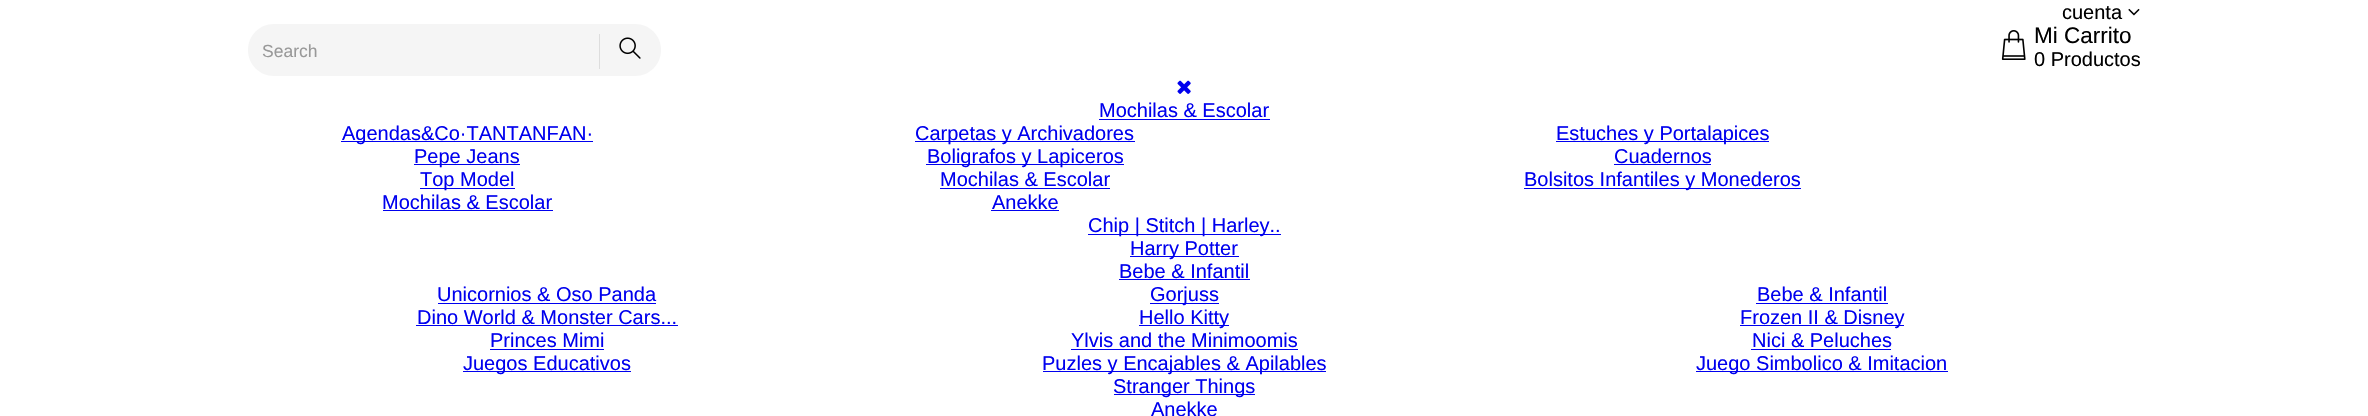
void draw(SkCanvas* c) {
SkPaint p;
p.setAntiAlias(true);
auto F=[&](const char* family, int weight, float size, bool italic = false){SkFontStyle style(weight, SkFontStyle::kNormal_Width,italic ? SkFontStyle::kItalic_Slant : SkFontStyle::kUpright_Slant);SkFont result(fontMgr->matchFamilyStyle(family, style), size);result.setSubpixel(true);return result;};
auto T=[&](const char* s, float x, float y, const SkFont& font){c->drawString(s, x, y, font, p);};
auto R=[&](float x, float y, float w, float h){c->drawRect(SkRect::MakeXYWH(x, y, w, h), p);};
auto I=[&](const char* path, float x, float y, float w, float h){auto image = SkImages::DeferredFromEncodedData(SkData::MakeFromFileName(path));c->drawImageRect(image, SkRect::MakeXYWH(x, y, w, h), SkSamplingOptions());};
auto P=[&](const char* data, bool evenOdd = false){SkPath result = *SkParsePath::FromSVGString(data);if (evenOdd) result.setFillType(SkPathFillType::kEvenOdd);return result;};
c->clear(0xffffffff);
auto f1 = F("Liberation Sans",400,20);
p.setColor(0xff000000);
T("cuenta",2062,19,f1);
I("1.png",2128,8,12,8);
p.setColor(0xfff5f5f5);
c->drawPath(P("M274 24h325v52h-325c-14.5 0-26-11.5-26-26c0-14.5 11.5-26 26-26z"),p);
auto f2 = F("Liberation Sans",400,17.5);
p.setColor(0xff999999);
T("Search",262,57,f2);
p.setColor(0xfff5f5f5);
c->drawPath(P("M599 24h36c14.5 0 26 11.5 26 26c0 14.5-11.5 26-26 26h-36z"),p);
p.setColor(0xffdddddd);
R(599,34,1,35);
I("2.png",619,37,22,22);
I("3.png",2001,30,25,30);
auto f3 = F("Liberation Sans",400,22.5);
p.setColor(0xff000000);
T("Mi Carrito",2034,43,f3);
T("0 Productos",2034,66,f1);
I("4.png",1177,80,14,14);
p.setColor(0xff0000ee);
T("Mochilas & Escolar",1099,117,f1);
R(1099,119,171,1);
R(341,141,252,1);
T("Agendas&Co·TANTANFAN·",342,140,f1);
R(414,164,106,1);
T("Pepe Jeans",414,163,f1);
R(420,188,95,1);
T("Top Model",420,186,f1);
T("Mochilas & Escolar",382,209,f1);
R(383,210,170,1);
R(915,141,220,1);
T("Carpetas y Archivadores",915,140,f1);
R(926,164,198,1);
T("Boligrafos y Lapiceros",927,163,f1);
T("Mochilas & Escolar",940,186,f1);
R(940,188,170,1);
T("Anekke",992,209,f1);
R(991,210,68,1);
R(1556,141,213,1);
T("Estuches y Portalapices",1556,140,f1);
T("Cuadernos",1614,163,f1);
R(1614,164,97,1);
R(1524,188,277,1);
T("Bolsitos Infantiles y Monederos",1524,186,f1);
R(1088,234,193,1);
T("Chip | Stitch | Harley..",1088,232,f1);
R(1130,256,109,1);
T("Harry Potter",1130,255,f1);
T("Bebe & Infantil",1119,278,f1);
R(1119,279,131,1);
T("Unicornios & Oso Panda",437,301,f1);
R(438,303,218,1);
T("Dino World & Monster Cars...",417,324,f1);
R(416,325,262,1);
T("Princes Mimi",490,347,f1);
R(490,349,114,1);
R(463,371,168,1);
T("Juegos Educativos",463,370,f1);
R(1150,303,69,1);
T("Gorjuss",1150,301,f1);
R(1139,325,90,1);
T("Hello Kitty",1139,324,f1);
T("Ylvis and the Minimoomis",1071,347,f1);
R(1071,349,227,1);
R(1043,371,283,1);
T("Puzles y Encajables & Apilables",1042,370,f1);
T("Bebe & Infantil",1757,301,f1);
R(1756,303,132,1);
R(1740,325,164,1);
T("Frozen II & Disney",1740,324,f1);
T("Nici & Peluches",1752,347,f1);
R(1751,349,140,1);
R(1696,371,252,1);
T("Juego Simbolico & Imitacion",1696,370,f1);
R(1114,394,141,1);
T("Stranger Things",1113,393,f1);
T("Anekke",1151,416,f1);
}
